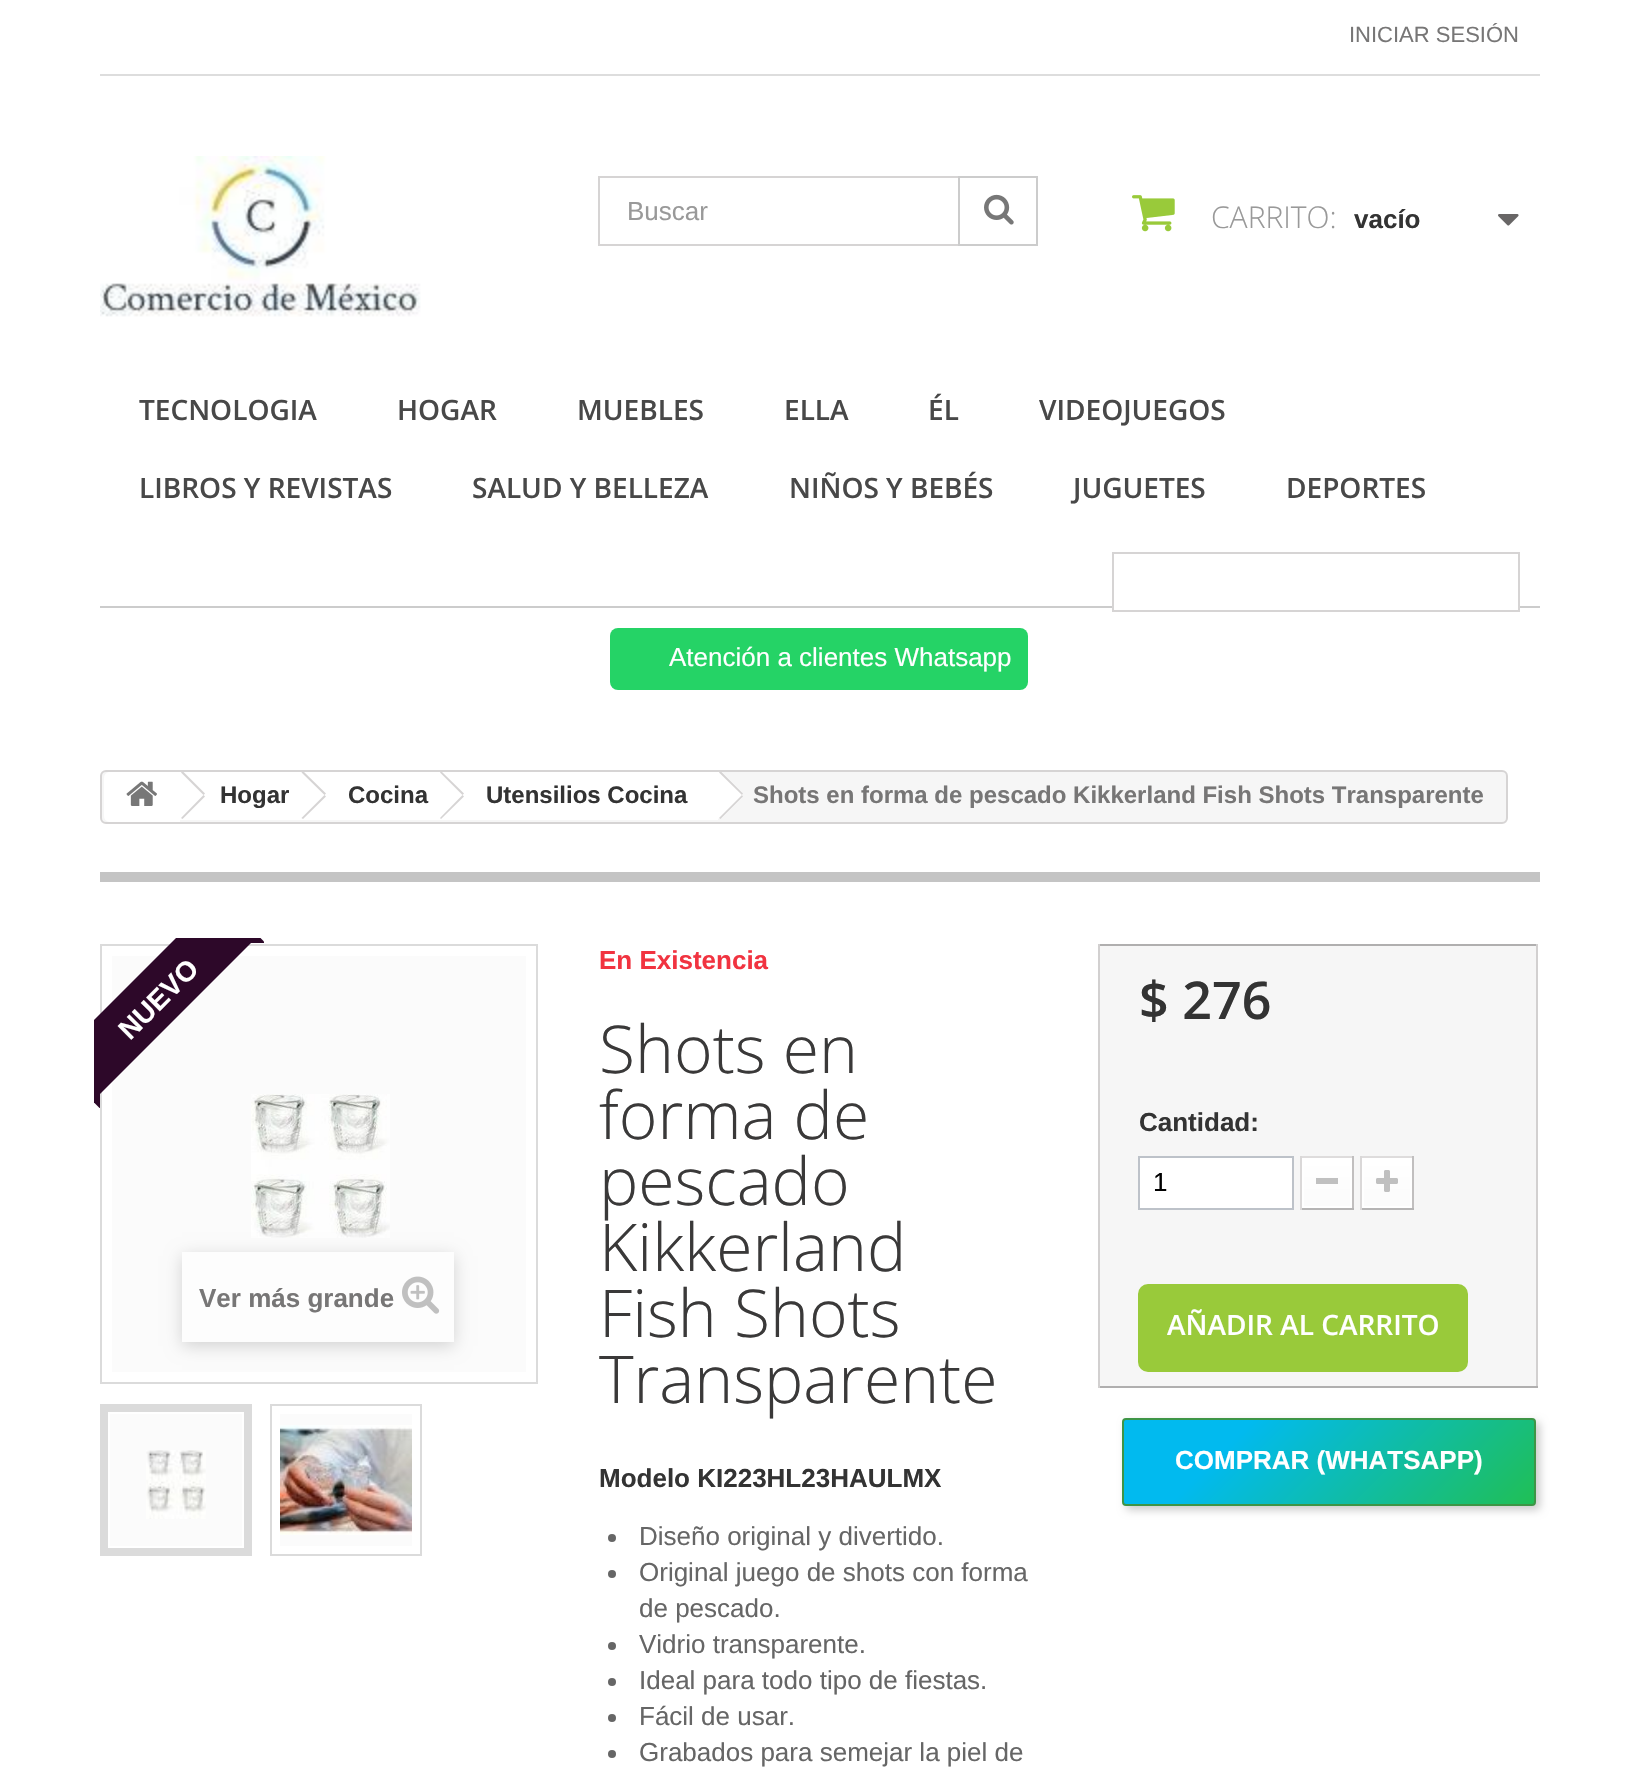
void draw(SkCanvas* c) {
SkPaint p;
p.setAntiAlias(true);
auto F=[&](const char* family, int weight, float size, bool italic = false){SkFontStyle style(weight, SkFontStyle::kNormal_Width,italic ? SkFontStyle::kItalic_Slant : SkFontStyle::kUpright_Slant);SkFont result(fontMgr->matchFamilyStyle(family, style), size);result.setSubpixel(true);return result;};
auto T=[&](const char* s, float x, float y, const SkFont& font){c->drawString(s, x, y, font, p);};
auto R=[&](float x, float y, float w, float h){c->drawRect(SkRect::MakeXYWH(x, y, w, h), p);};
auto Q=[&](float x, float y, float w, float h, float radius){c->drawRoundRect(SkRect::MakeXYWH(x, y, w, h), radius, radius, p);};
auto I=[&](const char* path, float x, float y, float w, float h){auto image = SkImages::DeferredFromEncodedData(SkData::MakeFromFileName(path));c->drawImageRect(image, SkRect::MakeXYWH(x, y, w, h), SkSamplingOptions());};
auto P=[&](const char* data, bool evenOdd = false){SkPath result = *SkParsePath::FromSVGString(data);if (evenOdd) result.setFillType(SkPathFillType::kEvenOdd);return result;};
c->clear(0xffffffff);
p.setColor(0xffdddddd);
R(100,74,1440,2);
auto f1 = F("Liberation Sans",400,22);
p.setColor(0xff777676);
T("INICIAR SESIÓN",1349,42,f1);
I("1.png",100,156,321,161);
p.setStroke(true);
p.setStrokeWidth(2);
p.setColor(0xffd6d4d4);
c->drawRect(SkRect::MakeXYWH(599,177,438,68),p);
auto f2 = F("Liberation Sans",400,26);
p.setStroke(false);
p.setColor(0xff999999);
T("Buscar",627,220,f2);
p.setStroke(true);
p.setColor(0xffcccccc);
c->drawRect(SkRect::MakeXYWH(959,177,78,68),p);
I("2.png",984,194,30,31);
I("3.png",1132,195,43,37);
auto f3 = F("Open Sans",300,30);
p.setStroke(false);
p.setColor(0xff999999);
T("CARRITO:",1211,228,f3);
auto f4 = F("Liberation Sans",700,26);
p.setColor(0xff333333);
T("vacío",1354,228,f4);
I("4.png",1498,214,21,12);
p.setColor(0xffcccccc);
R(100,606,1440,2);
auto f5 = F("Open Sans",600,28);
p.setColor(0xff484848);
T("TECNOLOGIA",139,420,f5);
T("HOGAR",397,420,f5);
T("MUEBLES",577,420,f5);
T("ELLA",784,420,f5);
T("ÉL",928,420,f5);
T("VIDEOJUEGOS",1039,420,f5);
T("LIBROS Y REVISTAS",139,498,f5);
T("SALUD Y BELLEZA",472,498,f5);
T("NIÑOS Y BEBÉS",789,498,f5);
T("JUGUETES",1073,498,f5);
T("DEPORTES",1286,498,f5);
p.setColor(0xffffffff);
R(1114,606,404,2);
p.setStroke(true);
p.setColor(0xffd6d4d4);
c->drawRect(SkRect::MakeXYWH(1113,553,406,58),p);
p.setStroke(false);
p.setColor(0xff25d366);
Q(610,628,418,62,8);
p.setColor(0xffffffff);
T("Atención a clientes Whatsapp",669,666,f2);
p.setColor(0xfff6f6f6);
c->drawRoundRect(SkRect::MakeXYWH(101,771,1406,52),5,5,p);
p.setStroke(true);
p.setColor(0xffd6d4d4);
c->drawRoundRect(SkRect::MakeXYWH(101,771,1406,52),5,5,p);
p.setStroke(false);
p.setColor(0xffffffff);
c->drawPath(P("M110 772h70v50h-70c-3.5 0-6-2.5-6-6v-38c0-3.5 2.5-6 6-6z"),p);
I("5.png",126,781,31,25);
R(180,772,124,48);
p.setColor(0xffd6d4d4);
c->drawPath(P("M183.5 772l21.5 21.5l-1.5 1.5l-22.5-22.5l.5-.5zm20 23l1.5 1.5l-22.5 22.5l-1.5-1z"),p);
auto f6 = F("Liberation Sans",700,24);
p.setColor(0xff333333);
T("Hogar",220,803,f6);
p.setColor(0xffffffff);
c->drawPath(P("M325 772h-6l-20 20c-1 2-1 4 0 6l20 20c1 1 4 1 6 0l19-20c2-2 2-4 0-6z"),p);
R(304,772,138,48);
p.setColor(0xffd6d4d4);
c->drawPath(P("M304 772l22 21.5l-1.5 1.5l-23-22.5l.5-.5zm20.5 23l1.5 1.5l-23 22.5l-1.5-1z"),p);
p.setColor(0xff333333);
T("Cocina",348,803,f6);
p.setColor(0xffffffff);
c->drawPath(P("M463 772h-6l-20 20c-1 2-1 4 0 6l20 20c1 1 4 1 6 0l19-20c2-2 2-4 0-6z"),p);
R(442,772,276,48);
p.setColor(0xffd6d4d4);
c->drawPath(P("M442 772l22 21.5l-1.5 1.5l-22.5-22.5l.5-.5zm20.5 23l1.5 1.5l-23 22.5l-1-1z"),p);
p.setColor(0xff333333);
T("Utensilios Cocina",486,803,f6);
p.setColor(0xffffffff);
c->drawPath(P("M722 772h-6l-20 20c-1 2-1 4 0 6l20 20c2 1 4 1 6 0l20-20c1-2 1-4 0-6z"),p);
p.setColor(0xffd6d4d4);
c->drawPath(P("M721.5 772l21.5 21.5l-1 1.5l-23-22.5l.5-.5zm20.5 23l1 1.5l-22.5 22.5l-1.5-1z"),p);
p.setColor(0xff777676);
T("Shots en forma de pescado Kikkerland Fish Shots Transparente",753,803,f6);
p.setColor(0xffc4c4c4);
R(100,872,1440,10);
p.setStroke(true);
p.setColor(0xffdbdbdb);
c->drawRect(SkRect::MakeXYWH(101,945,436,438),p);
p.setStroke(false);
p.setColor(0xfffbfbfb);
R(112,956,414,416);
I("6.png",251,1094,139,144);
c->save();
c->clipRect(SkRect::MakeXYWH(94,938,170,170));
p.setColor(0xff2d0829);
c->drawPath(P("M45 1069l184-184l40 40l-184 184z"),p);
c->drawPath(P("M265.5 943h-16l8-8z"),p);
c->restore();
auto f7 = F("Liberation Sans",700,28);
p.setColor(0xffffffff);
c->save();
c->rotate(-45,130,1041);
T("NUEVO",130,1041,f7);
c->restore();
c->save();
c->clipRect(SkRect::MakeXYWH(94,938,170,170));
p.setColor(0xff2d0829);
c->drawPath(P("M100 1092.5v16l-8-8z"),p);
c->restore();
p.setColor(0x29000000);
p.setMaskFilter(SkMaskFilter::MakeBlur(kNormal_SkBlurStyle, 8));
c->drawRect(SkRect::MakeXYWH(182,1256,272,90),p);
p.setMaskFilter(nullptr);
p.setColor(0xfffdfdfd);
R(182,1252,272,90);
p.setColor(0xff777676);
T("Ver más grande",199,1307,f4);
I("7.png",402,1276,38,38);
p.setStroke(true);
p.setColor(0xffdbdbdb);
c->drawRect(SkRect::MakeXYWH(101,1405,150,150),p);
p.setStroke(false);
p.setColor(0xfffbfbfb);
R(110,1414,132,132);
p.setStroke(true);
p.setStrokeWidth(6);
p.setColor(0xffdbdbdb);
c->drawRect(SkRect::MakeXYWH(105,1409,142,142),p);
I("8.png",146,1450,60,69);
p.setStrokeWidth(2);
c->drawRect(SkRect::MakeXYWH(271,1405,150,150),p);
p.setStroke(false);
p.setColor(0xfffbfbfb);
R(280,1414,132,132);
I("9.png",280,1425,132,110);
p.setColor(0xfff13340);
T("En Existencia",599,969,f4);
auto f8 = F("Open Sans",300,66);
p.setColor(0xff3a3939);
T("Shots en",599,1073,f8);
T("forma de",599,1139,f8);
T("pescado",599,1205,f8);
T("Kikkerland",599,1271,f8);
T("Fish Shots",599,1337,f8);
T("Transparente",599,1403,f8);
p.setColor(0xff333333);
T("Modelo KI223HL23HAULMX",599,1487,f4);
p.setColor(0xff666666);
c->drawCircle(612,1538,4,p);
T("Diseño original y divertido.",639,1545,f2);
c->drawCircle(612,1574,4,p);
T("Original juego de shots con forma",639,1581,f2);
T("de pescado.",639,1617,f2);
c->drawCircle(612,1646,4,p);
T("Vidrio transparente.",639,1653,f2);
c->drawCircle(612,1682,4,p);
T("Ideal para todo tipo de fiestas.",639,1689,f2);
c->drawCircle(612,1718,4,p);
T("Fácil de usar.",639,1725,f2);
c->drawCircle(612,1754,4,p);
T("Grabados para semejar la piel de",639,1761,f2);
p.setColor(0xfff6f6f6);
R(1100,946,436,440);
p.setColor(0xffb0afaf);
R(1098,944,440,2);
p.setColor(0xffd2d0d0);
R(1536,944,2,444);
p.setColor(0xffb0afaf);
R(1098,1386,440,2);
p.setColor(0xffd2d0d0);
R(1098,944,2,444);
auto f9 = F("Open Sans",600,52);
p.setColor(0xff333333);
T("$ 276",1139,1019,f9);
T("Cantidad:",1139,1131,f4);
p.setColor(0xffffffff);
c->drawRect(SkRect::MakeXYWH(1139,1157,154,52),p);
p.setStroke(true);
p.setColor(0xffbdc2c9);
c->drawRect(SkRect::MakeXYWH(1139,1157,154,52),p);
p.setStroke(false);
p.setColor(0xff000000);
T("1",1153,1191,f2);
p.setColor(0xffdedcdc);
R(1300,1156,54,2);
p.setColor(0xffc1bfbf);
R(1352,1156,2,54);
p.setColor(0xffb5b4b4);
R(1300,1208,54,2);
p.setColor(0xffdad8d8);
R(1300,1156,2,54);
{
const SkColor colors[] = {0xffffffff,0xfffbfbfb};
const float stops[] = {0,1};
const SkPoint ends[] = {{1327,1160}, {1327,1206}};
p.setShader(SkGradientShader::MakeLinear(ends, colors, stops, 2, SkTileMode::kClamp));
p.setAlpha(255);
}
R(1304,1160,46,46);
p.setStroke(true);
p.setShader(nullptr);
p.setColor(0xffffffff);
c->drawRect(SkRect::MakeXYWH(1303,1159,48,48),p);
p.setStroke(false);
p.setColor(0xffc0c0c0);
R(1316,1178,22,6);
p.setColor(0xffdedcdc);
R(1360,1156,54,2);
p.setColor(0xffc1bfbf);
R(1412,1156,2,54);
p.setColor(0xffb5b4b4);
R(1360,1208,54,2);
p.setColor(0xffdad8d8);
R(1360,1156,2,54);
{
const SkColor colors[] = {0xffffffff,0xfffbfbfb};
const float stops[] = {0,1};
const SkPoint ends[] = {{1387,1160}, {1387,1206}};
p.setShader(SkGradientShader::MakeLinear(ends, colors, stops, 2, SkTileMode::kClamp));
p.setAlpha(255);
}
R(1364,1160,46,46);
p.setStroke(true);
p.setShader(nullptr);
p.setColor(0xffffffff);
c->drawRect(SkRect::MakeXYWH(1363,1159,48,48),p);
I("10.png",1376,1170,22,22);
p.setStroke(false);
p.setColor(0xff99ca3a);
c->drawRoundRect(SkRect::MakeXYWH(1139,1285,328,86),9,9,p);
p.setStroke(true);
c->drawRoundRect(SkRect::MakeXYWH(1139,1285,328,86),9,9,p);
p.setStroke(false);
p.setColor(0xffffffff);
T("AÑADIR AL CARRITO",1167,1335,f5);
p.setColor(0x33000000);
p.setMaskFilter(SkMaskFilter::MakeBlur(kNormal_SkBlurStyle, 4));
c->drawRoundRect(SkRect::MakeXYWH(1126,1422,414,88),4,4,p);
p.setMaskFilter(nullptr);
{
const SkColor colors[] = {0xff20bf55,0xff01baef};
const float stops[] = {0,.74};
const SkPoint ends[] = {{1453,1586}, {1206,1339}};
p.setShader(SkGradientShader::MakeLinear(ends, colors, stops, 2, SkTileMode::kClamp));
p.setAlpha(255);
}
R(1124,1420,410,84);
p.setStroke(true);
p.setShader(nullptr);
p.setColor(0xff3e9546);
c->drawRoundRect(SkRect::MakeXYWH(1123,1419,412,86),3,3,p);
p.setStroke(false);
p.setColor(0xffffffff);
T("COMPRAR (WHATSAPP)",1175,1469,f4);
}
